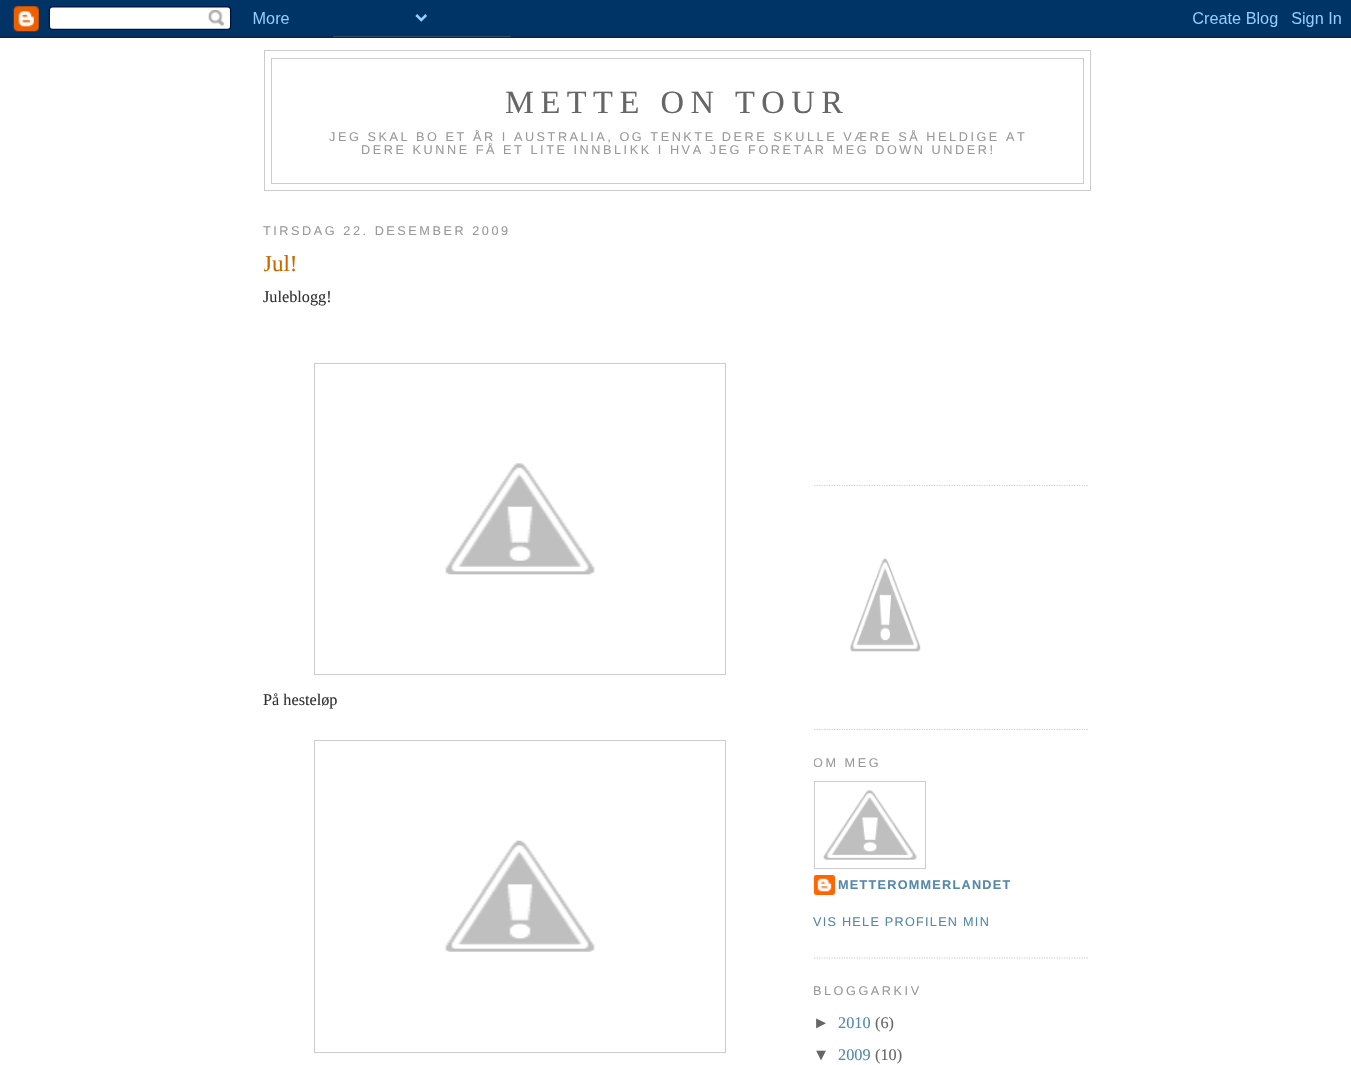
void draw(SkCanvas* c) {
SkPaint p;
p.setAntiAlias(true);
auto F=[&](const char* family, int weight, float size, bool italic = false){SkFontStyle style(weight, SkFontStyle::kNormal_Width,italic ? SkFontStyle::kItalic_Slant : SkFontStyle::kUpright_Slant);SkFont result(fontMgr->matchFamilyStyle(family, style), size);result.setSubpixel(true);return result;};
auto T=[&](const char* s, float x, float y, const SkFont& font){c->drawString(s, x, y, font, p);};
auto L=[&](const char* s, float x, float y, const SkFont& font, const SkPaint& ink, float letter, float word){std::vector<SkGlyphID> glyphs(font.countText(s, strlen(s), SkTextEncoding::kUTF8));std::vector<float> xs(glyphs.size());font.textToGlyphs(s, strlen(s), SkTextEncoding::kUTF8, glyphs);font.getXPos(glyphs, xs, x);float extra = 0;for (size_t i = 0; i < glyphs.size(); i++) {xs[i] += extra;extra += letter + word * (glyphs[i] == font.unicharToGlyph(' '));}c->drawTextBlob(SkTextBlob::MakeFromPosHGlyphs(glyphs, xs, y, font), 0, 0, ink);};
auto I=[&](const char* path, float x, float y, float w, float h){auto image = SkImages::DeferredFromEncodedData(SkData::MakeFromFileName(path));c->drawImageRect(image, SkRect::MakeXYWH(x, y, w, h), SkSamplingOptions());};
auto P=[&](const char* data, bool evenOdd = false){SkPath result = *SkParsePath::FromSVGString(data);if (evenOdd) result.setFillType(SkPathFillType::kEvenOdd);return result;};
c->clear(0xffffffff);
I("1.png",0,0,1351,38);
p.setStroke(true);
p.setStrokeWidth(1);
p.setColor(0xffcccccc);
c->drawRect(SkRect::MakeXYWH(264.5,50.5,826,140),p);
c->drawRect(SkRect::MakeXYWH(271.5,58.5,812,125),p);
auto f1 = F("Liberation Serif",400,32.5);
p.setStroke(false);
p.setColor(0xff666666);
L("METTE ON TOUR",505,113,f1,p,6.5,0);
auto f2 = F("Liberation Sans",400,12.68);
p.setColor(0xff999999);
L("JEG SKAL BO ET ÅR I AUSTRALIA, OG TENKTE DERE SKULLE VÆRE SÅ HELDIGE AT",329,141,f2,p,2.55,0);
L("DERE KUNNE FÅ ET LITE INNBLIKK I HVA JEG FORETAR MEG DOWN UNDER!",361,154,f2,p,2.55,0);
L("TIRSDAG 22. DESEMBER 2009",263,235,f2,p,2.55,0);
c->save();
c->clipRect(SkRect::MakeXYWH(264,204,512,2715));
auto f3 = F("Liberation Serif",400,23);
p.setColor(0xffcc6600);
T("Jul!",263,271,f3);
c->restore();
auto f4 = F("Liberation Serif",400,16.25);
p.setColor(0xff333333);
T("Juleblogg!",263,302,f4);
p.setStroke(true);
p.setColor(0xffcccccc);
c->drawRect(SkRect::MakeXYWH(314.5,363.5,411,311),p);
I("2.png",445,463,150,112);
p.setStroke(false);
p.setColor(0xff333333);
T("På hesteløp",263,705,f4);
p.setStroke(true);
p.setColor(0xffcccccc);
c->drawRect(SkRect::MakeXYWH(314.5,740.5,411,312),p);
I("3.png",445,840,150,112);
p.setStrokeWidth(1.2);
p.setPathEffect(SkDashPathEffect::Make({{1.25f,1.25f}}, 0));
c->drawPath(P("M814 485.5h275"),p);
p.setPathEffect(nullptr);
p.setPathEffect(SkDashPathEffect::Make({{1.25f,1.25f}}, 0));
c->drawPath(P("M814 729.5h275"),p);
p.setPathEffect(nullptr);
I("4.png",850,558,71,94);
p.setPathEffect(SkDashPathEffect::Make({{1.25f,1.25f}}, 0));
c->drawPath(P("M814 958h275"),p);
p.setPathEffect(nullptr);
c->save();
c->clipRect(SkRect::MakeXYWH(814,204,275,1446));
p.setStroke(false);
p.setColor(0xff999999);
L("OM MEG",813,767,f2,p,2.55,0);
c->restore();
p.setStroke(true);
p.setStrokeWidth(1);
p.setColor(0xffcccccc);
c->drawRect(SkRect::MakeXYWH(814.5,781.5,111,87),p);
I("5.png",823,790,94,70);
I("6.png",813,875,22,20);
auto f5 = F("Liberation Sans",700,12.68);
p.setStroke(false);
p.setColor(0xff5588aa);
L("METTEROMMERLANDET",838,889,f5,p,1.25,0);
L("VIS HELE PROFILEN MIN",813,926,f2,p,1.25,0);
p.setColor(0xff999999);
L("BLOGGARKIV",813,995,f2,p,2.55,0);
auto f6 = F("Liberation Sans",400,16.25);
p.setColor(0xff666666);
T("►",813,1028,f6);
p.setColor(0xff5588aa);
T("2010",838,1028,f4);
p.setColor(0xff666666);
T("(6)",875,1028,f4);
T("▼",813,1060,f6);
p.setColor(0xff5588aa);
T("2009",838,1060,f4);
p.setColor(0xff666666);
T("(10)",875,1060,f4);
}
